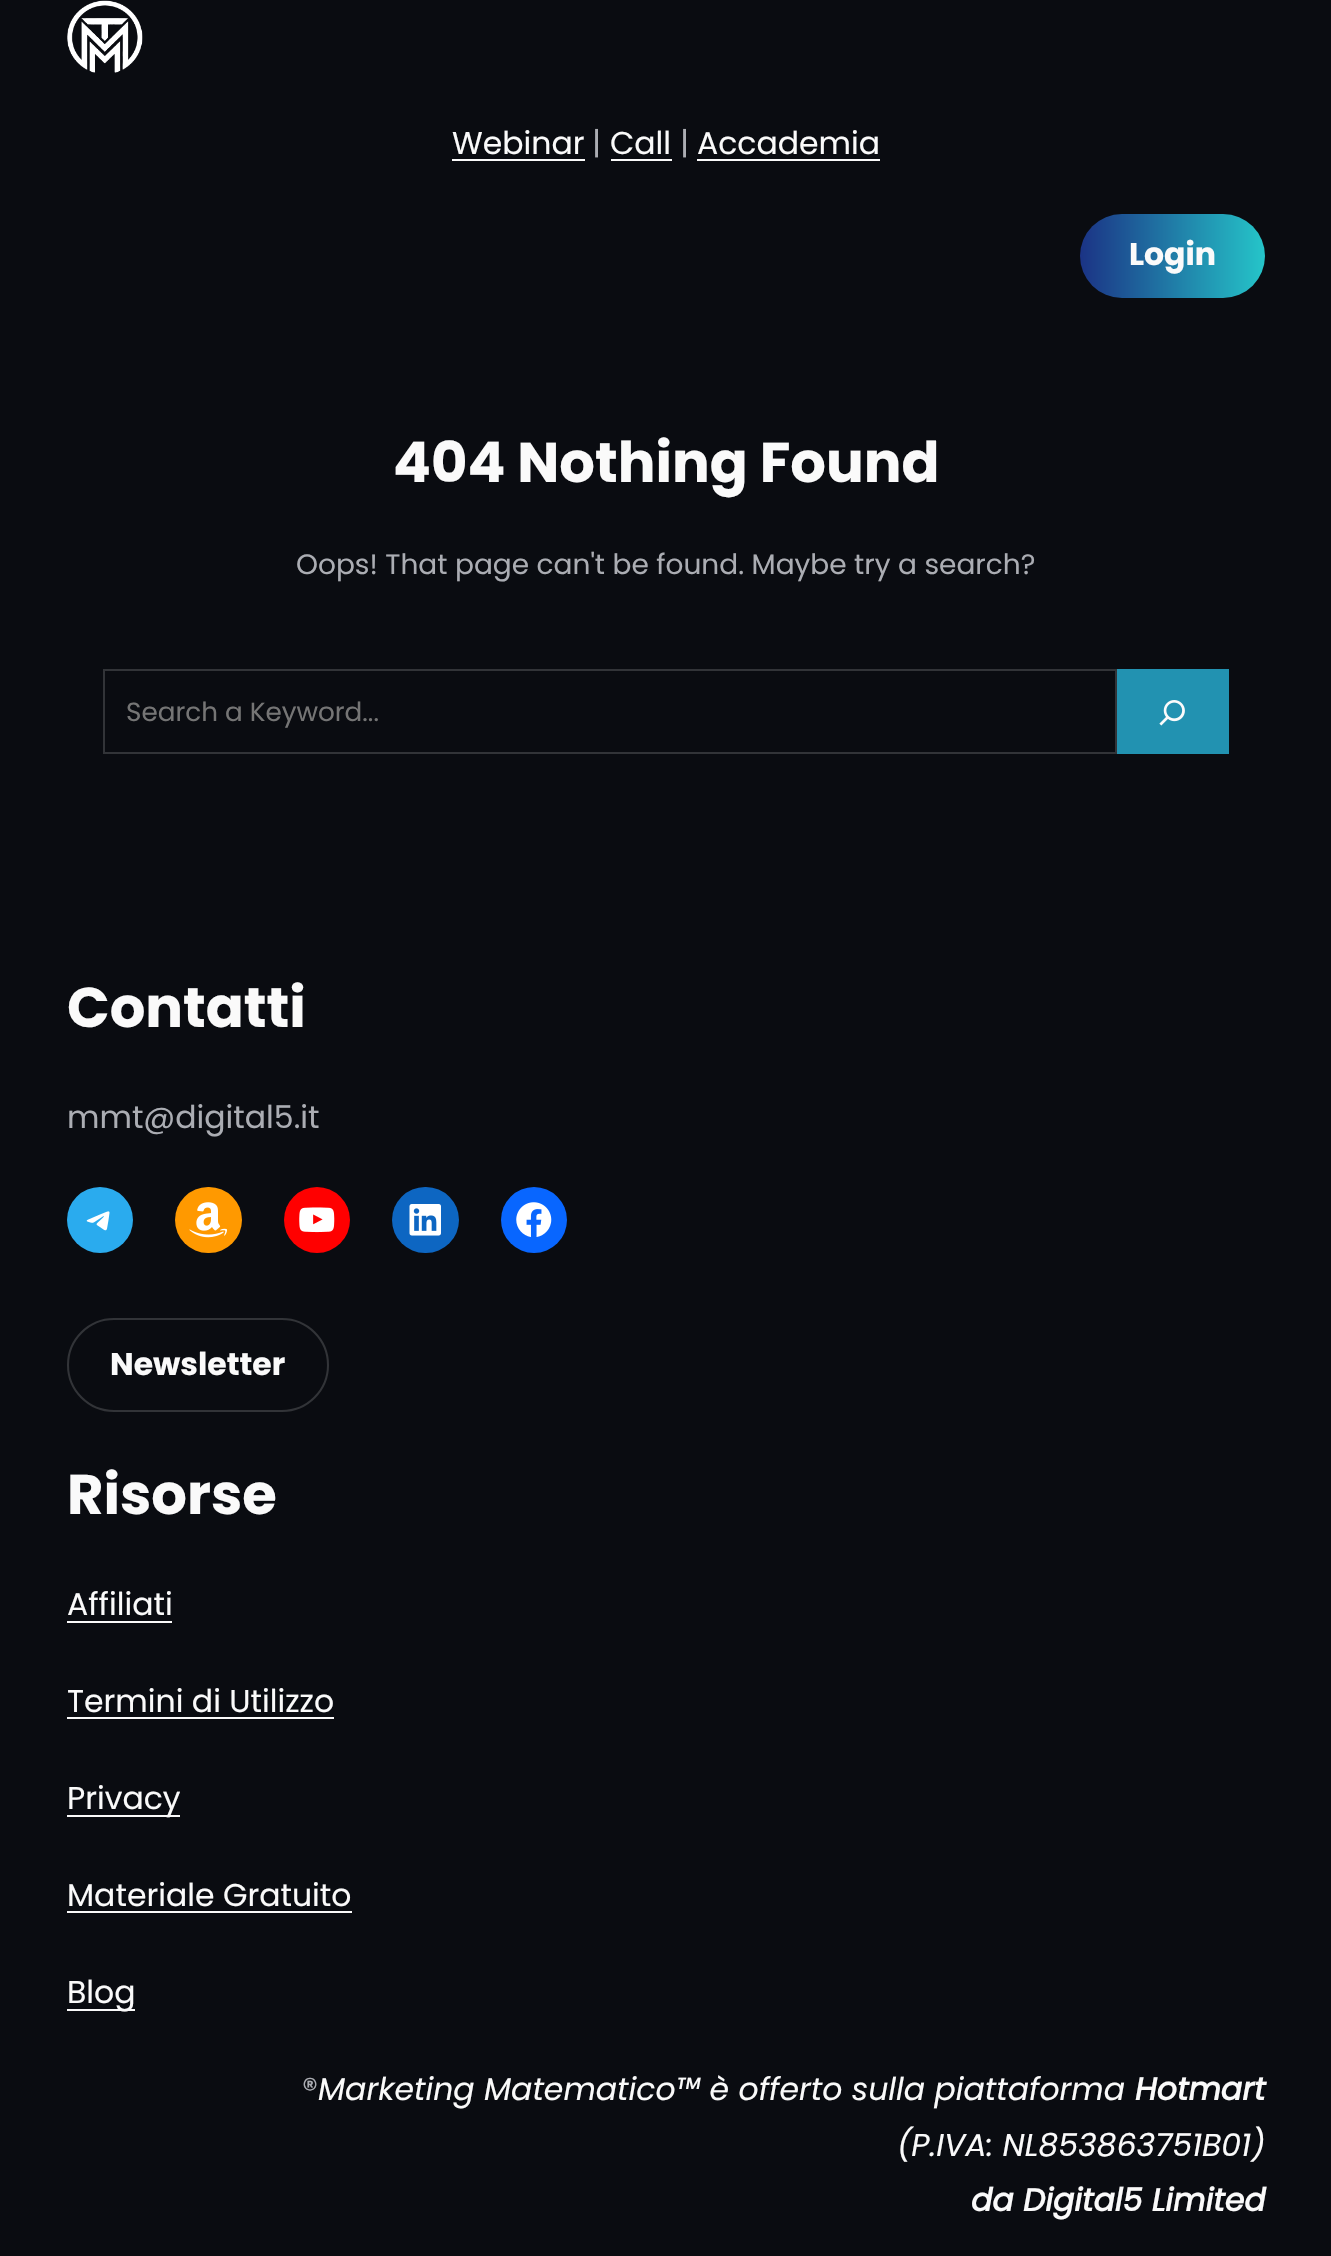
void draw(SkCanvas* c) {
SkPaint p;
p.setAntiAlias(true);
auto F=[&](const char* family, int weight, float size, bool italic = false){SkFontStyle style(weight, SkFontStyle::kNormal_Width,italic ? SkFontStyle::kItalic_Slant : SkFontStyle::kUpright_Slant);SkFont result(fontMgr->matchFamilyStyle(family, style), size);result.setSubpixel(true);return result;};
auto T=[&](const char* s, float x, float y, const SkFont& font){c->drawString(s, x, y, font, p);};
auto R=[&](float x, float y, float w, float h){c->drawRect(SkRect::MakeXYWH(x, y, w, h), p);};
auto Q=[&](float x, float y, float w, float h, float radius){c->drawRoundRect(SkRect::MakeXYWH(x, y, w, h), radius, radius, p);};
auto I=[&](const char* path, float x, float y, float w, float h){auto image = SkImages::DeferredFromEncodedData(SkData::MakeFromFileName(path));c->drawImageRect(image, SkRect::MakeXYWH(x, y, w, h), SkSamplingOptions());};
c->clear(0xff0a0c11);
I("1.png",67,0,76,73);
auto f1 = F("Poppins",400,31.5);
p.setColor(0xfffafafa);
T("Webinar",452,154,f1);
R(452,159,133,2);
p.setColor(0xffabadb3);
T("|",592,154,f1);
p.setColor(0xfffafafa);
T("Call",610,154,f1);
R(611,159,61,2);
p.setColor(0xffabadb3);
T("|",680,154,f1);
p.setColor(0xfffafafa);
T("Accademia",697,154,f1);
R(697,159,183,2);
{
const SkColor colors[] = {0xff1b3385,0xff25c5c9};
const float stops[] = {0,1};
const SkPoint ends[] = {{1080,256}, {1265,256}};
p.setShader(SkGradientShader::MakeLinear(ends, colors, stops, 2, SkTileMode::kClamp));
p.setAlpha(255);
}
Q(1080,214,185,84,42);
auto f2 = F("Poppins",700,31.5);
p.setShader(nullptr);
p.setColor(0xfffafafa);
T("Login",1129,265,f2);
auto f3 = F("Poppins",700,56);
T("404 Nothing Found",393,482,f3);
auto f4 = F("Poppins",400,28);
p.setColor(0xffabadb3);
T("Oops! That page can't be found. Maybe try a search?",296,574,f4);
p.setStroke(true);
p.setStrokeWidth(2);
p.setColor(0xff323438);
c->drawRect(SkRect::MakeXYWH(104,670,1012,83),p);
auto f5 = F("Poppins",400,26.25);
p.setStroke(false);
p.setColor(0xff757575);
T("Search a Keyword...",126,721,f5);
p.setColor(0xff2292b1);
R(1117,669,112,85);
I("2.png",1159,700,26,26);
p.setColor(0xfffafafa);
T("Contatti",67,1027,f3);
p.setColor(0xffabadb3);
T("mmt@digital5.it",67,1128,f1);
p.setColor(0xff2aabee);
c->drawCircle(100,1220,33,p);
I("3.png",86,1211,24,20);
p.setColor(0xffff9900);
Q(175,1187,67,66,33);
I("4.png",189,1202,38,36);
p.setColor(0xffff0000);
c->drawCircle(317,1220,33,p);
I("5.png",299,1207,36,26);
p.setColor(0xff0d66c2);
Q(392,1187,67,66,33);
I("6.png",409,1204,32,32);
p.setColor(0xff0866ff);
c->drawCircle(534,1220,33,p);
I("7.png",516,1202,36,35);
p.setStroke(true);
p.setColor(0xff323438);
c->drawRoundRect(SkRect::MakeXYWH(68,1319,260,92),46,46,p);
p.setStroke(false);
p.setColor(0xfffafafa);
T("Newsletter",110,1375,f2);
T("Risorse",67,1514,f3);
T("Affiliati",67,1615,f1);
R(67,1621,105,2);
T("Termini di Utilizzo",67,1712,f1);
R(67,1717,267,2);
R(67,1815,113,2);
T("Privacy",67,1809,f1);
T("Materiale Gratuito",67,1906,f1);
R(67,1911,285,2);
R(67,2009,68,2);
T("Blog",67,2003,f1);
p.setColor(0xffabadb3);
T("®",302,2100,f1);
auto f6 = F("Poppins",400,31.5,true);
p.setColor(0xfffafafa);
T("Marketing Matematico™ è offerto sulla piattaforma",318,2100,f6);
auto f7 = F("Poppins",700,31.5,true);
T("Hotmart",1135,2100,f7);
T("(P.IVA: NL853863751B01)",897,2156,f6);
T("da Digital5 Limited",971,2211,f7);
}
